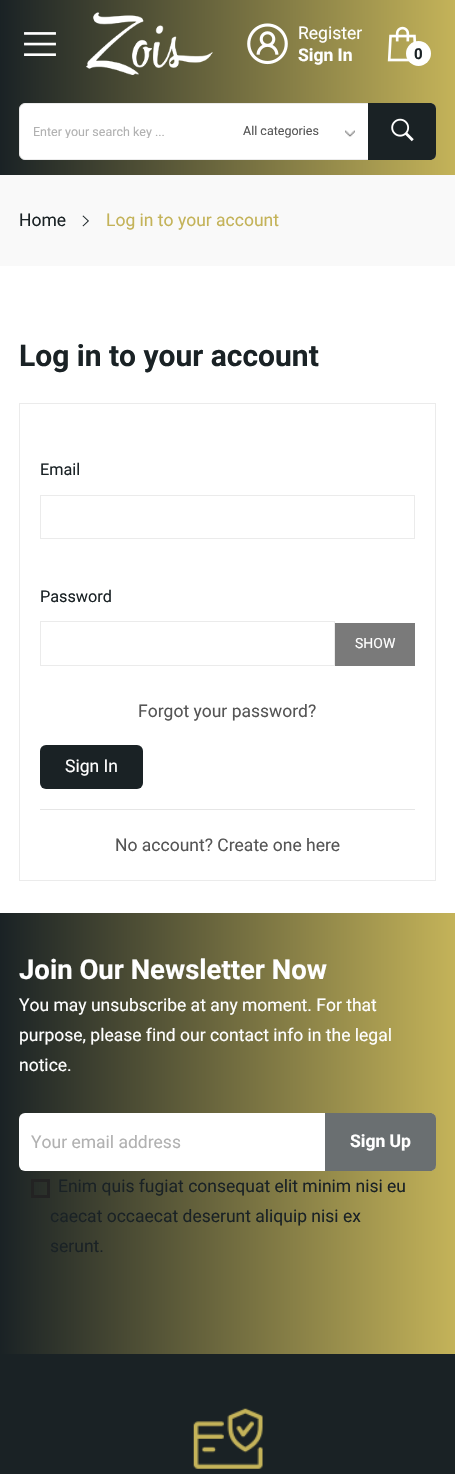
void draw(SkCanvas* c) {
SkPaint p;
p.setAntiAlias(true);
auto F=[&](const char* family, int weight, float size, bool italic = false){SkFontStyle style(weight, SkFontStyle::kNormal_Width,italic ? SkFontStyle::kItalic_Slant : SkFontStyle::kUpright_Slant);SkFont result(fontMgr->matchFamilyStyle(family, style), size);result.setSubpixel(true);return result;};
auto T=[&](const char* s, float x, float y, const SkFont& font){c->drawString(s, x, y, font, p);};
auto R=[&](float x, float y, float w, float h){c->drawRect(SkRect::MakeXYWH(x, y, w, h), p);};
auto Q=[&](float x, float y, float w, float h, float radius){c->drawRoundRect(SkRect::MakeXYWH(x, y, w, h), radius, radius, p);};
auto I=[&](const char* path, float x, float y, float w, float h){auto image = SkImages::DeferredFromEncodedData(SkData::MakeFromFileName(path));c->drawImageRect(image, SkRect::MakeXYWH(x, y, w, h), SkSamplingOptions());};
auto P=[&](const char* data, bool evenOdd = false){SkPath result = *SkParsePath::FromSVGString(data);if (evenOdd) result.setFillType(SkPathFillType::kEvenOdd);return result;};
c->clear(0xffffffff);
{
const SkColor colors[] = {0xff1a2225,0xffc4b359};
const float stops[] = {0,1};
const SkPoint ends[] = {{0,88}, {455,87}};
p.setShader(SkGradientShader::MakeLinear(ends, colors, stops, 2, SkTileMode::kClamp));
p.setAlpha(255);
}
R(0,0,455,175);
I("1.png",24,32,32,24);
I("2.png",86,12,127,63);
I("3.png",247,23,41,42);
auto f1 = F("Roboto",400,17.5);
p.setShader(nullptr);
p.setColor(0xffffffff);
T("Register",298,39,f1);
auto f2 = F("Roboto",700,17.5);
T("Sign In",298,61,f2);
I("4.png",387,26,30,36);
c->drawCircle(418.5,53.5,12.5,p);
auto f3 = F("Roboto",700,15);
p.setColor(0xff1a2225);
T("0",414,59,f3);
p.setColor(0xffffffff);
c->drawRoundRect(SkRect::MakeXYWH(19.5,103.5,416,56),5.5,5.5,p);
p.setStroke(true);
p.setStrokeWidth(1);
p.setColor(0xffebebeb);
c->drawRoundRect(SkRect::MakeXYWH(19.5,103.5,416,56),5.5,5.5,p);
c->save();
c->clipRect(SkRect::MakeXYWH(33,124,183,14));
auto f4 = F("Roboto",400,12.5);
p.setStroke(false);
p.setColor(0xffb1b1b1);
T("Enter your search key ...",33,136,f4);
c->restore();
I("5.png",345,130,10,7);
p.setColor(0xff555555);
T("All categories",243,135,f4);
p.setColor(0xff1a2225);
c->drawPath(P("M368 103h62c3.5 0 6 2.5 6 6v45c0 3.5-2.5 6-6 6h-62z"),p);
I("6.png",391,118,23,24);
p.setColor(0xfff9f9f9);
R(0,175,455,91);
p.setColor(0xff1a2225);
T("Home",19,226,f1);
I("7.png",82,215,7,12);
p.setColor(0xffc4b359);
T("Log in to your account",106,226,f1);
auto f5 = F("Roboto",700,30);
p.setColor(0xff1a2225);
T("Log in to your account",19,366,f5);
p.setStroke(true);
p.setColor(0xffebebeb);
c->drawRect(SkRect::MakeXYWH(19.5,403.5,416,477),p);
auto f6 = F("Roboto",400,16.25);
p.setStroke(false);
p.setColor(0xff1a2225);
T("Email",40,475,f6);
p.setStroke(true);
p.setColor(0xffebebeb);
c->drawRect(SkRect::MakeXYWH(40.5,495.5,374,43),p);
p.setStroke(false);
p.setColor(0xff1a2225);
T("Password",40,602,f6);
p.setStroke(true);
p.setColor(0xffebebeb);
c->drawRect(SkRect::MakeXYWH(40.5,621.5,294,44),p);
p.setStroke(false);
p.setColor(0xff7a7a7a);
R(335,623,80,43);
auto f7 = F("Roboto",400,14);
p.setColor(0xffffffff);
T("SHOW",355,648,f7);
p.setColor(0xff555555);
T("Forgot your password?",138,717,f1);
p.setColor(0xff1a2225);
Q(40,745,103,44,6);
p.setColor(0xffffffff);
T("Sign In",65,772,f1);
p.setColor(0xffe6e6e6);
R(40,809,375,1);
p.setColor(0xff555555);
T("No account? Create one here",115,851,f1);
p.setColor(0xff1a2225);
R(0,1354,455,120);
{
const SkColor colors[] = {0xff1a2225,0xffc4b359};
const float stops[] = {0,1};
const SkPoint ends[] = {{0,1133}, {455,1133}};
p.setShader(SkGradientShader::MakeLinear(ends, colors, stops, 2, SkTileMode::kClamp));
p.setAlpha(255);
}
R(0,913,455,441);
auto f8 = F("Roboto",700,27.5);
p.setShader(nullptr);
p.setColor(0xffffffff);
T("Join Our Newsletter Now",19,979,f8);
T("You may unsubscribe at any moment. For that",19,1011,f1);
T("purpose, please find our contact info in the legal",19,1041,f1);
T("notice.",19,1071,f1);
Q(19,1113,417,58,6);
p.setColor(0xffb1b1b1);
T("Your email address",31,1148,f1);
p.setColor(0xa61a2225);
c->drawPath(P("M325 1113h105c3.5 0 6 2.5 6 6v46c0 3.5-2.5 6-6 6h-105z"),p);
p.setColor(0xffffffff);
T("Sign Up",350,1147,f2);
p.setStroke(true);
p.setStrokeWidth(3);
p.setColor(0xff232323);
c->drawRect(SkRect::MakeXYWH(32.5,1180.5,16,16),p);
p.setStroke(false);
p.setColor(0xff1a2225);
T("Enim quis fugiat consequat elit minim nisi eu",58,1192,f1);
T("caecat occaecat deserunt aliquip nisi ex",50,1222,f1);
T("serunt.",50,1252,f1);
I("8.png",193,1408,70,61);
}
